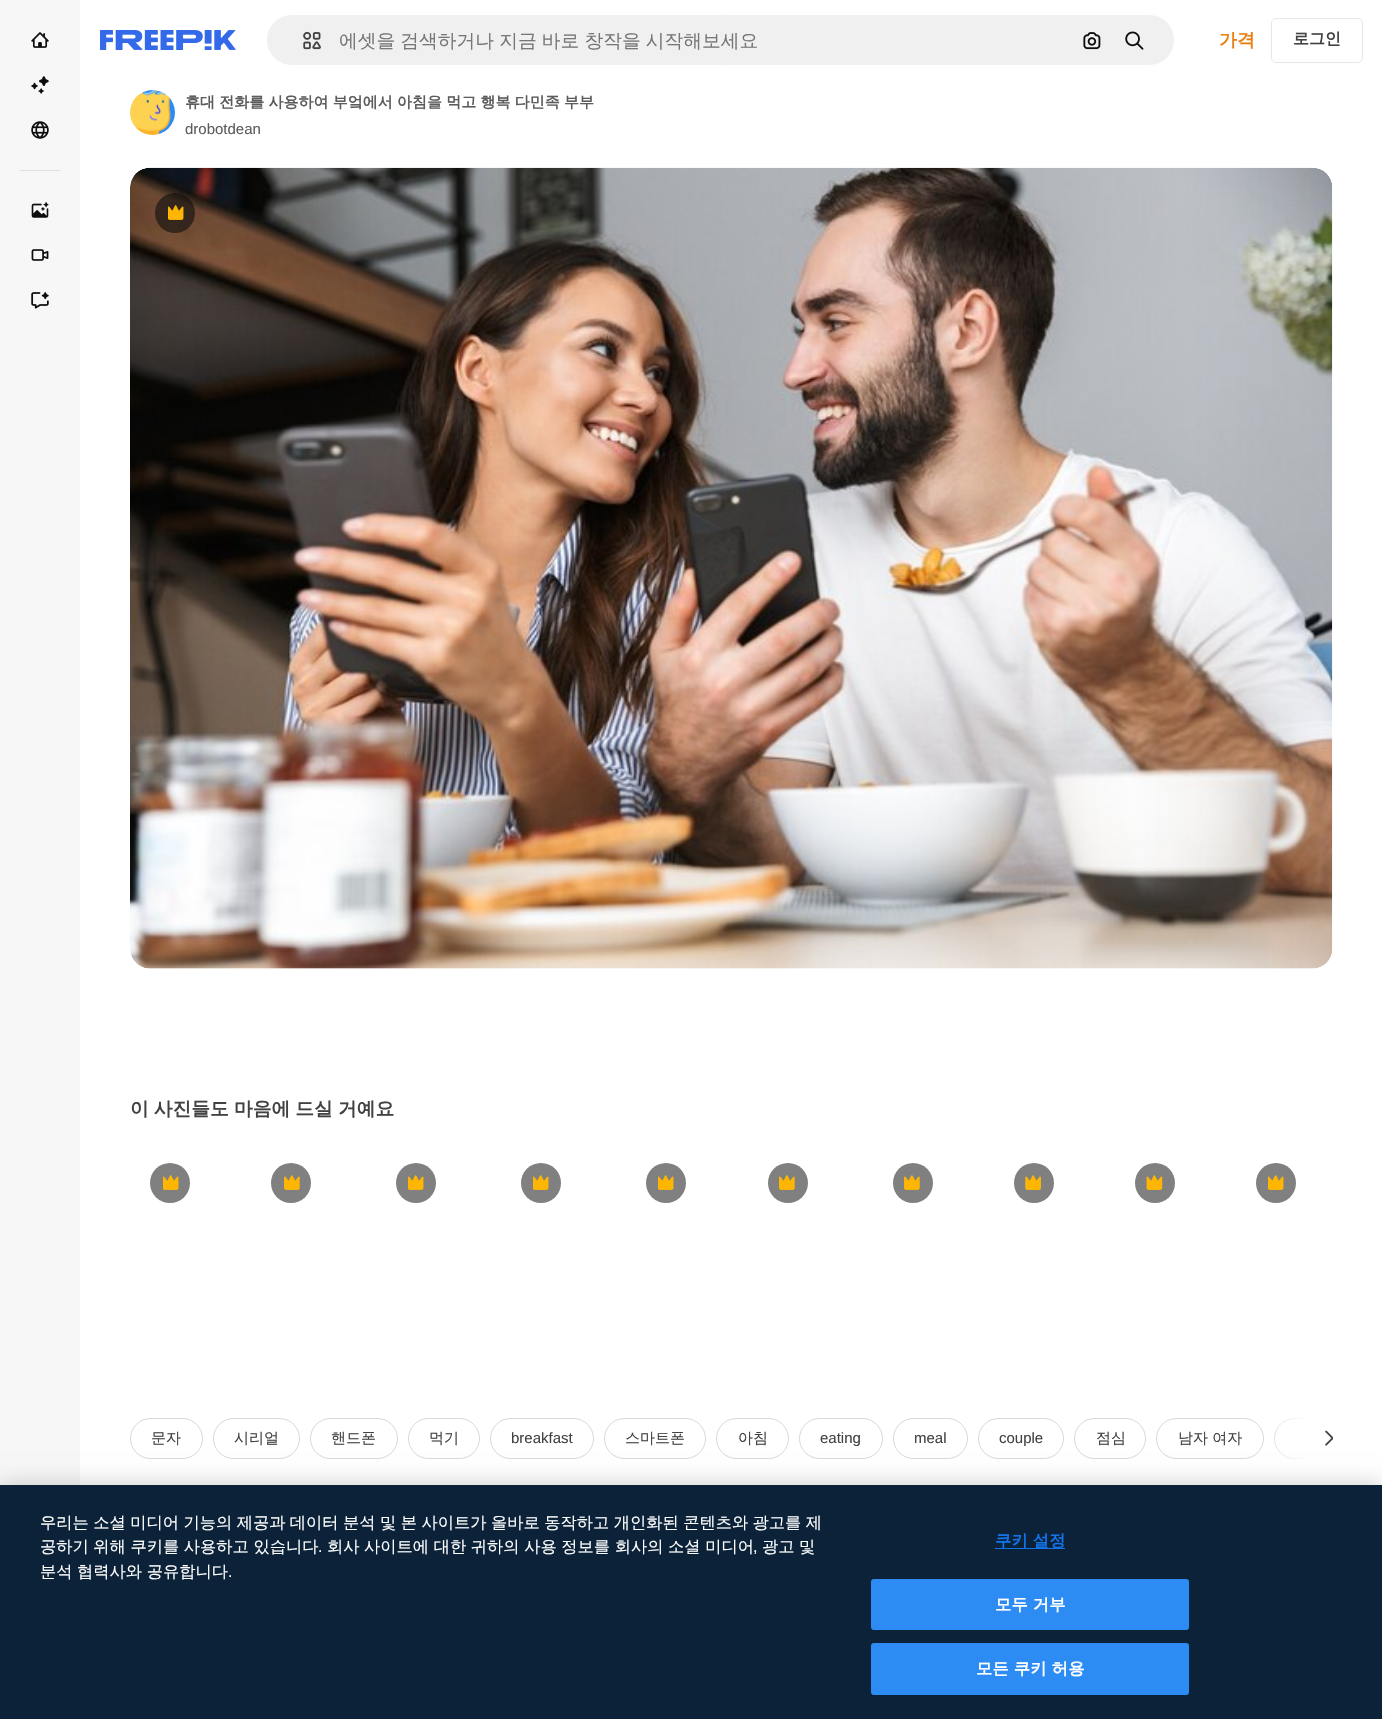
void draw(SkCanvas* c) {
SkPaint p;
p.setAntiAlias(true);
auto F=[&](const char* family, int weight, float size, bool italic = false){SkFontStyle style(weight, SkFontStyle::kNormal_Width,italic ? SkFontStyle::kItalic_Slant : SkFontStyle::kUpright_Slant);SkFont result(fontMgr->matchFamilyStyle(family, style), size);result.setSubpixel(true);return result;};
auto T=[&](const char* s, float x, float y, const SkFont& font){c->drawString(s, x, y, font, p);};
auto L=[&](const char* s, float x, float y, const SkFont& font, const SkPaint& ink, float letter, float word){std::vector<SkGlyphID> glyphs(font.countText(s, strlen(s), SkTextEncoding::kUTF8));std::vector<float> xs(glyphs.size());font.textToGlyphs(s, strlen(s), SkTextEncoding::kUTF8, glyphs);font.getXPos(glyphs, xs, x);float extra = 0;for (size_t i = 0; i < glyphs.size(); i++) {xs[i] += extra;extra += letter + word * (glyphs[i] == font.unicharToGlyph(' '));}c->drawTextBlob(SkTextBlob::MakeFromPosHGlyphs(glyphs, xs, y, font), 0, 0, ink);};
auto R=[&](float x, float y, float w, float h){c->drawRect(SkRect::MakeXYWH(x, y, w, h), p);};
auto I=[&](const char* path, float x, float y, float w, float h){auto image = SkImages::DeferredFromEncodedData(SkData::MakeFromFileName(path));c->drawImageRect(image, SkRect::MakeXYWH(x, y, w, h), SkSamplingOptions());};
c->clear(0xffffffff);
p.setColor(0xfff7f7f7);
R(0,0,80,1485);
I("1.png",31,32,18,16);
I("2.png",31,76,18,18);
I("3.png",31,121,18,18);
p.setColor(0xffe0e0e0);
R(20,170,40,1);
I("4.png",31,202,18,16);
I("5.png",31,249,18,12);
I("6.png",31,292,18,17);
I("7.png",100,30,136,20);
p.setColor(0xfff0f0f0);
c->drawRoundRect(SkRect::MakeXYWH(266.5,14.5,908,51),25.5,25.5,p);
p.setStroke(true);
p.setStrokeWidth(1);
p.setColor(0xffffffff);
c->drawRoundRect(SkRect::MakeXYWH(266.5,14.5,908,51),25.5,25.5,p);
I("8.png",303,31,18,19);
auto f1 = F("WenQuanYi Zen Hei",500,18.75);
p.setStroke(false);
p.setColor(0xff777777);
L("에셋을 검색하거나 지금 바로 창작을 시작해보세요",339,47,f1,p,0,-.5);
I("9.png",1083,32,18,18);
I("10.png",1125,31,19,19);
auto f2 = F("WenQuanYi Zen Hei",700,18);
p.setColor(0xffea7e11);
T("가격",1219,46,f2);
p.setStroke(true);
p.setColor(0xffe7e7e7);
c->drawRoundRect(SkRect::MakeXYWH(1271.5,18.5,91,44),4.5,4.5,p);
auto f3 = F("WenQuanYi Zen Hei",700,16);
p.setStroke(false);
p.setColor(0xff424242);
T("로그인",1293,44,f3);
I("11.png",130,90,45,45);
auto f4 = F("WenQuanYi Zen Hei",700,15);
p.setColor(0xff5c5c5c);
L("휴대 전화를 사용하여 부엌에서 아침을 먹고 행복 다민족 부부",185,107,f4,p,0,-.25);
auto f5 = F("Liberation Sans",400,15);
T("drobotdean",185,134,f5);
I("12.png",130,167,1203,802);
p.setColor(0x990d0d0d);
c->drawCircle(175,213,20,p);
I("13.png",168,205,16,15);
auto f6 = F("WenQuanYi Zen Hei",700,18.75);
p.setColor(0xff424242);
L("이 사진들도 마음에 드실 거예요",130,1115,f6,p,0,-.5);
p.setColor(0xff808080);
c->drawCircle(170,1183,20,p);
I("14.png",163,1175,16,15);
c->drawCircle(291,1183,20,p);
I("15.png",284,1175,16,15);
c->drawCircle(416,1183,20,p);
I("14.png",408,1175,16,15);
c->drawCircle(541,1183,20,p);
I("14.png",533,1175,16,15);
c->drawCircle(666,1183,20,p);
I("14.png",658,1175,16,15);
c->drawCircle(788,1183,20,p);
I("15.png",779,1175,16,15);
c->drawCircle(913,1183,20,p);
I("15.png",904,1175,16,15);
c->drawCircle(1034,1183,20,p);
I("16.png",1025,1175,16,15);
c->drawCircle(1155,1183,20,p);
I("17.png",1146,1175,17,15);
c->drawCircle(1276,1183,20,p);
I("14.png",1268,1175,16,15);
p.setStroke(true);
p.setColor(0xffd8d8d8);
c->drawRoundRect(SkRect::MakeXYWH(130.5,1418.5,72,40),20,20,p);
auto f7 = F("WenQuanYi Zen Hei",500,15);
p.setStroke(false);
p.setColor(0xff424242);
T("문자",151,1443,f7);
p.setStroke(true);
p.setColor(0xffd8d8d8);
c->drawRoundRect(SkRect::MakeXYWH(213.5,1418.5,86,40),20,20,p);
p.setStroke(false);
p.setColor(0xff424242);
T("시리얼",234,1443,f7);
p.setStroke(true);
p.setColor(0xffd8d8d8);
c->drawRoundRect(SkRect::MakeXYWH(310.5,1418.5,87,40),20,20,p);
p.setStroke(false);
p.setColor(0xff424242);
T("핸드폰",331,1443,f7);
p.setStroke(true);
p.setColor(0xffd8d8d8);
c->drawRoundRect(SkRect::MakeXYWH(408.5,1418.5,71,40),20,20,p);
p.setStroke(false);
p.setColor(0xff424242);
T("먹기",429,1443,f7);
p.setStroke(true);
p.setColor(0xffd8d8d8);
c->drawRoundRect(SkRect::MakeXYWH(490.5,1418.5,103,40),20,20,p);
p.setStroke(false);
p.setColor(0xff424242);
T("breakfast",511,1443,f5);
p.setStroke(true);
p.setColor(0xffd8d8d8);
c->drawRoundRect(SkRect::MakeXYWH(604.5,1418.5,101,40),20,20,p);
p.setStroke(false);
p.setColor(0xff424242);
T("스마트폰",625,1443,f7);
p.setStroke(true);
p.setColor(0xffd8d8d8);
c->drawRoundRect(SkRect::MakeXYWH(716.5,1418.5,72,40),20,20,p);
p.setStroke(false);
p.setColor(0xff424242);
T("아침",738,1443,f7);
p.setStroke(true);
p.setColor(0xffd8d8d8);
c->drawRoundRect(SkRect::MakeXYWH(799.5,1418.5,83,40),20,20,p);
p.setStroke(false);
p.setColor(0xff424242);
T("eating",820,1443,f5);
p.setStroke(true);
p.setColor(0xffd8d8d8);
c->drawRoundRect(SkRect::MakeXYWH(893.5,1418.5,74,40),20,20,p);
p.setStroke(false);
p.setColor(0xff424242);
T("meal",914,1443,f5);
p.setStroke(true);
p.setColor(0xffd8d8d8);
c->drawRoundRect(SkRect::MakeXYWH(978.5,1418.5,85,40),20,20,p);
p.setStroke(false);
p.setColor(0xff424242);
T("couple",999,1443,f5);
p.setStroke(true);
p.setColor(0xffd8d8d8);
c->drawRoundRect(SkRect::MakeXYWH(1074.5,1418.5,71,40),20,20,p);
p.setStroke(false);
p.setColor(0xff424242);
T("점심",1096,1443,f7);
p.setStroke(true);
p.setColor(0xffd8d8d8);
c->drawRoundRect(SkRect::MakeXYWH(1156.5,1418.5,107,40),20,20,p);
p.setStroke(false);
p.setColor(0xff424242);
L("남자 여자",1178,1443,f7,p,0,-.25);
c->save();
c->clipRect(SkRect::MakeXYWH(130,1418,1203,41));
p.setStroke(true);
p.setColor(0xffd8d8d8);
c->drawRoundRect(SkRect::MakeXYWH(1274.5,1418.5,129,40),20,20,p);
c->restore();
p.setStroke(false);
p.setColor(0xffffffff);
R(1308,1418,25,41);
{
const SkColor colors[] = {0xffffffff,0x00ffffff};
const float stops[] = {0,1};
const SkPoint ends[] = {{1308,1438}, {1264,1438}};
p.setShader(SkGradientShader::MakeLinear(ends, colors, stops, 2, SkTileMode::kClamp));
p.setAlpha(255);
}
R(1274,1418,34,41);
I("18.png",1325,1430,8,16);
p.setShader(nullptr);
p.setColor(0x33000000);
p.setMaskFilter(SkMaskFilter::MakeBlur(kNormal_SkBlurStyle, 11));
c->drawRect(SkRect::MakeXYWH(0,1485,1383,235),p);
p.setMaskFilter(nullptr);
p.setColor(0xff0b2239);
R(0,1485,1382,234);
auto f8 = F("WenQuanYi Zen Hei",500,16.25);
p.setColor(0xffffffff);
L("우리는 소셜 미디어 기능의 제공과 데이터 분석 및 본 사이트가 올바로 동작하고 개인화된 콘텐츠와 광고를 제",40,1528,f8,p,0,-.4);
L("공하기 위해 쿠키를 사용하고 있습니다",40,1552,f8,p,0,-.25);
auto f9 = F("Liberation Sans",400,16.25);
T(".",318,1552,f9);
L("회사 사이트에 대한 귀하의 사용 정보를 회사의 소셜 미디어",327,1552,f8,p,0,-.25);
T(",",753,1552,f9);
L("광고 및",762,1552,f8,p,0,-.25);
L("분석 협력사와 공유합니다",40,1577,f8,p,0,-.25);
T(".",228,1577,f9);
p.setColor(0xff1273eb);
R(995,1548,70,1);
auto f10 = F("WenQuanYi Zen Hei",700,16.25);
L("쿠키 설정",995,1546,f10,p,.25,-.25);
p.setColor(0xff2c8cf4);
c->drawRoundRect(SkRect::MakeXYWH(871.5,1579.5,317,50),2,2,p);
p.setStroke(true);
c->drawRoundRect(SkRect::MakeXYWH(871.5,1579.5,317,50),2,2,p);
p.setStroke(false);
p.setColor(0xffffffff);
L("모두 거부",995,1610,f10,p,.25,-.25);
p.setColor(0xff2c8cf4);
c->drawRoundRect(SkRect::MakeXYWH(871.5,1643.5,317,51),2,2,p);
p.setStroke(true);
c->drawRoundRect(SkRect::MakeXYWH(871.5,1643.5,317,51),2,2,p);
p.setStroke(false);
p.setColor(0xffffffff);
L("모든 쿠키 허용",976,1674,f10,p,.25,-.25);
}
